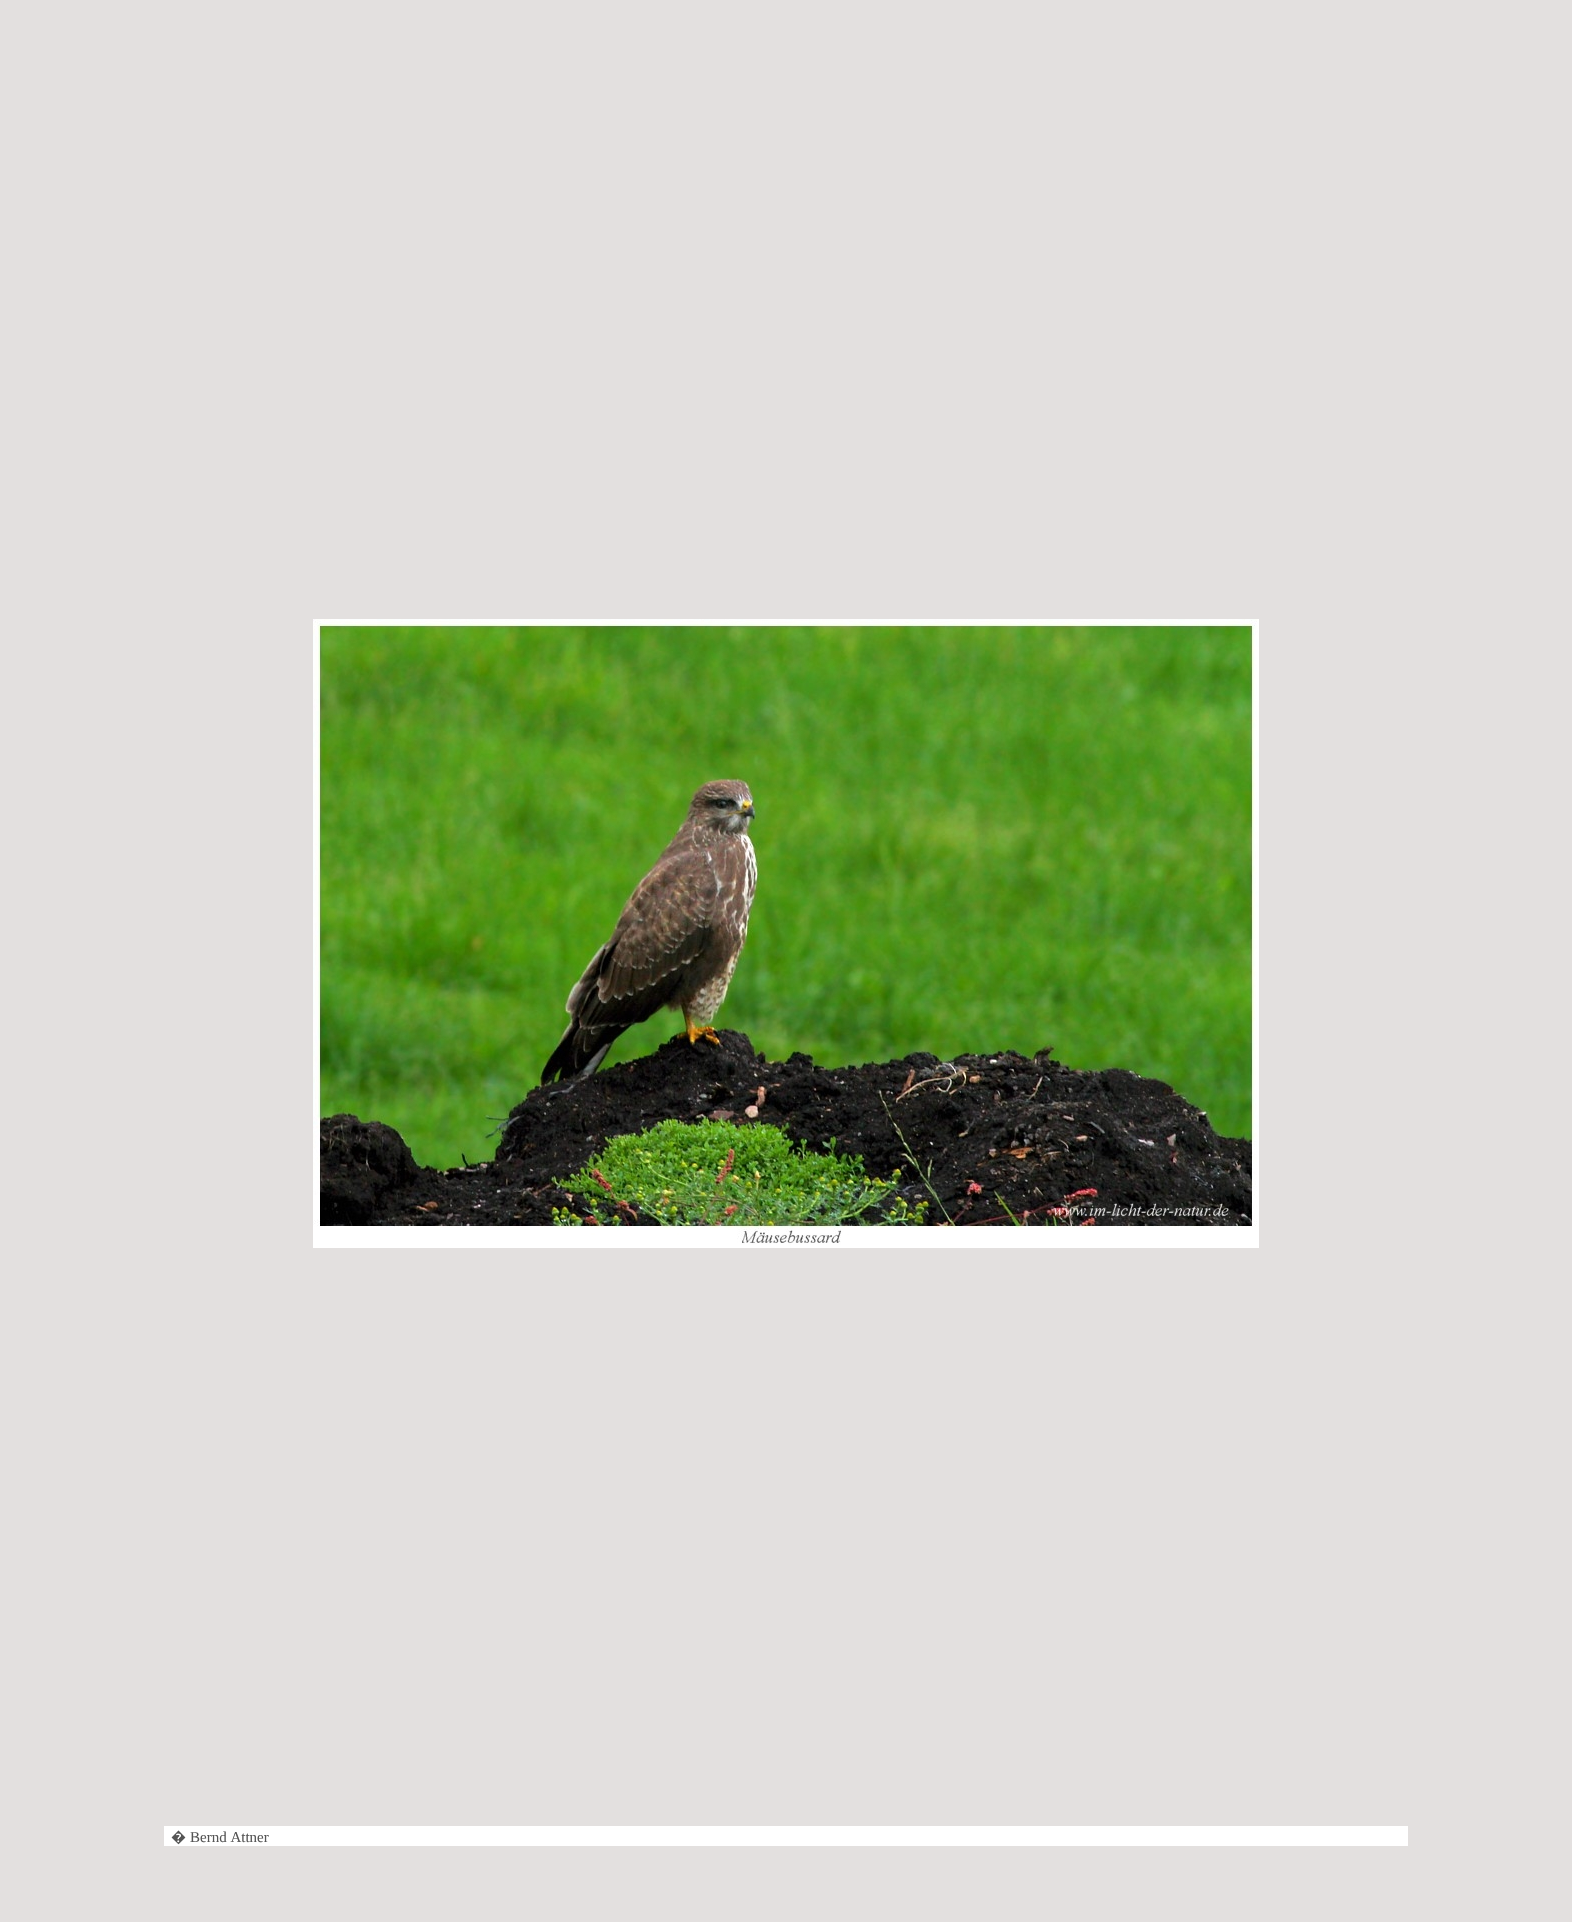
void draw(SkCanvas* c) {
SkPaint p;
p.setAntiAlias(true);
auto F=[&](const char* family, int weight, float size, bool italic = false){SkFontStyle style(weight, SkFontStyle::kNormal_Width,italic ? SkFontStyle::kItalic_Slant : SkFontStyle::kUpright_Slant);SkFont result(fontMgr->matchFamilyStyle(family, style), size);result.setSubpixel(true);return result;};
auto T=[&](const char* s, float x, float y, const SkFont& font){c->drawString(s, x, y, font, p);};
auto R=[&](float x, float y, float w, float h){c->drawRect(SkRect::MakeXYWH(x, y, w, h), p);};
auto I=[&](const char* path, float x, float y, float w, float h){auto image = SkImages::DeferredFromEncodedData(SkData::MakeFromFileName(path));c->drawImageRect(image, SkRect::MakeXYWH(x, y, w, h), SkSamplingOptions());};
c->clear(0xffe3e0df);
I("1.png",313,619,946,629);
p.setColor(0xffffffff);
R(164,1826,1244,20);
auto f1 = F("Noto Sans",400,15);
p.setColor(0xff555555);
T("�",171,1842,f1);
auto f2 = F("Liberation Serif",400,15);
T("Bernd Attner",190,1842,f2);
}
